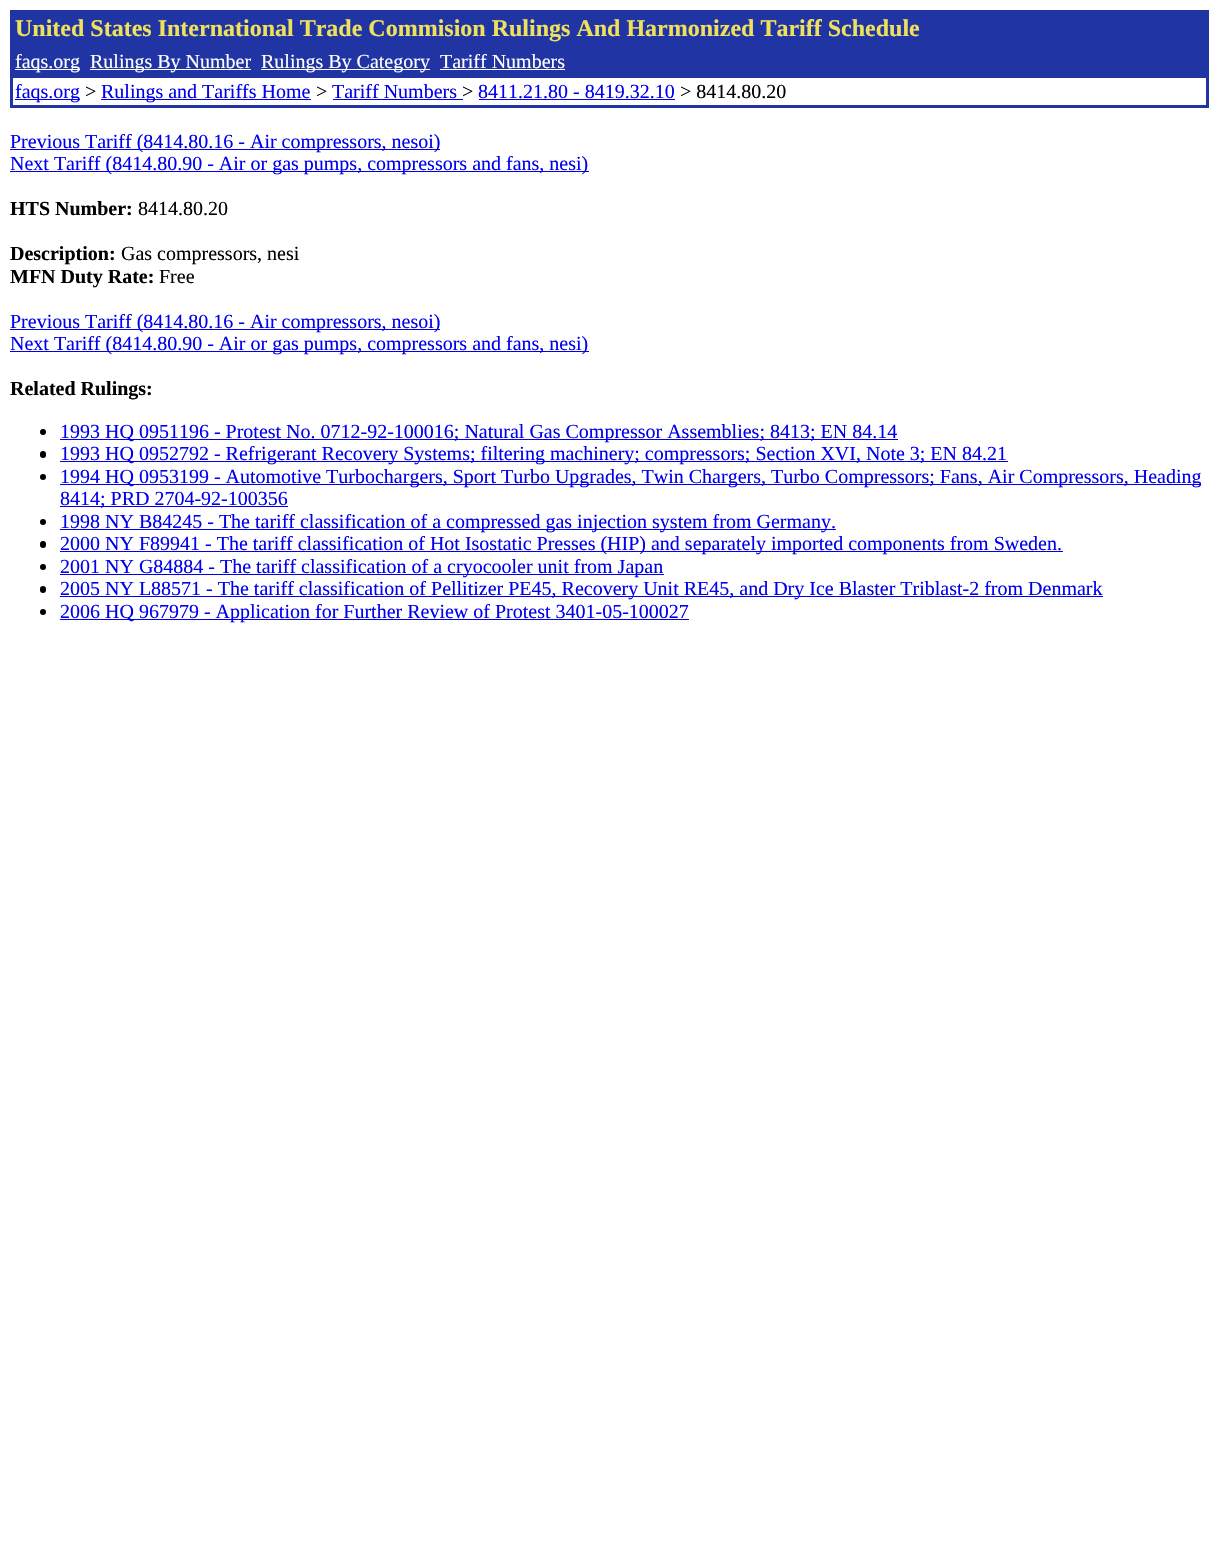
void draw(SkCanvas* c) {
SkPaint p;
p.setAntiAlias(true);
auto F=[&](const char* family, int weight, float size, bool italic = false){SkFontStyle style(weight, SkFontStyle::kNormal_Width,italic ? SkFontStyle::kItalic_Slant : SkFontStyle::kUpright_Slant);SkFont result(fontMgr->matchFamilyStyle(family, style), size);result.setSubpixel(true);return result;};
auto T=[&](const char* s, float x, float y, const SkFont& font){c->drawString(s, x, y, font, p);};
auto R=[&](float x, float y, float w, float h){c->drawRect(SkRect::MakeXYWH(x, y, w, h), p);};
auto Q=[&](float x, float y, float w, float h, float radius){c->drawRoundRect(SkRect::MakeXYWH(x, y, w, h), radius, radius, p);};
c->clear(0xffffffff);
p.setColor(0xff2134a3);
R(10,10,1199,98);
auto f1 = F("Liberation Serif",700,24);
p.setColor(0xffefe15d);
T("United States International Trade Commision Rulings And Harmonized Tariff Schedule",15,36,f1);
p.setColor(0xffffffff);
R(15,69,65,1);
auto f2 = F("Liberation Serif",400,20);
T("faqs.org",15,68,f2);
R(90,69,161,1);
T("Rulings By Number",90,68,f2);
R(261,69,169,1);
T("Rulings By Category",261,68,f2);
T("Tariff Numbers",440,68,f2);
R(440,69,125,1);
R(13,78,1193,27);
p.setColor(0xff0000ee);
R(15,99,65,1);
T("faqs.org",15,98,f2);
p.setColor(0xff000000);
T(">",85,98,f2);
p.setColor(0xff0000ee);
R(101,99,210,1);
T("Rulings and Tariffs Home",101,98,f2);
p.setColor(0xff000000);
T(">",316,98,f2);
p.setColor(0xff0000ee);
T("Tariff Numbers",332,98,f2);
p.setColor(0xff000000);
T(">",462,98,f2);
p.setColor(0xff0000ee);
R(333,99,130,1);
T("8411.21.80 - 8419.32.10",478,98,f2);
R(479,99,196,1);
p.setColor(0xff000000);
T("> 8414.80.20",680,98,f2);
p.setColor(0xff0000ee);
R(10,149,430,1);
T("Previous Tariff (8414.80.16 - Air compressors, nesoi)",10,148,f2);
R(10,171,579,1);
T("Next Tariff (8414.80.90 - Air or gas pumps, compressors and fans, nesi)",10,170,f2);
auto f3 = F("Liberation Serif",700,20);
p.setColor(0xff000000);
T("HTS Number:",10,215,f3);
T("8414.80.20",138,215,f2);
T("Description:",10,260,f3);
T("Gas compressors, nesi",121,260,f2);
T("MFN Duty Rate:",10,283,f3);
T("Free",159,283,f2);
p.setColor(0xff0000ee);
R(10,329,430,1);
T("Previous Tariff (8414.80.16 - Air compressors, nesoi)",10,328,f2);
R(10,351,579,1);
T("Next Tariff (8414.80.90 - Air or gas pumps, compressors and fans, nesi)",10,350,f2);
p.setColor(0xff000000);
T("Related Rulings:",10,395,f3);
c->drawCircle(43,432,3,p);
p.setColor(0xff0000ee);
R(60,439,838,1);
T("1993 HQ 0951196 - Protest No. 0712-92-100016; Natural Gas Compressor Assemblies; 8413; EN 84.14",60,438,f2);
p.setColor(0xff000000);
Q(40,451,6,7,3);
p.setColor(0xff0000ee);
R(60,461,948,1);
T("1993 HQ 0952792 - Refrigerant Recovery Systems; filtering machinery; compressors; Section XVI, Note 3; EN 84.21",60,460,f2);
p.setColor(0xff000000);
c->drawCircle(43,477,3,p);
p.setColor(0xff0000ee);
R(60,484,1141,1);
T("1994 HQ 0953199 - Automotive Turbochargers, Sport Turbo Upgrades, Twin Chargers, Turbo Compressors; Fans, Air Compressors, Heading",60,483,f2);
R(60,506,228,1);
T("8414; PRD 2704-92-100356",60,505,f2);
p.setColor(0xff000000);
c->drawCircle(43,522,3,p);
p.setColor(0xff0000ee);
R(60,529,776,1);
T("1998 NY B84245 - The tariff classification of a compressed gas injection system from Germany.",60,528,f2);
p.setColor(0xff000000);
Q(40,541,6,7,3);
p.setColor(0xff0000ee);
R(60,551,1003,1);
T("2000 NY F89941 - The tariff classification of Hot Isostatic Presses (HIP) and separately imported components from Sweden.",60,550,f2);
p.setColor(0xff000000);
c->drawCircle(43,567,3,p);
p.setColor(0xff0000ee);
R(60,574,604,1);
T("2001 NY G84884 - The tariff classification of a cryocooler unit from Japan",60,573,f2);
p.setColor(0xff000000);
Q(40,586,6,7,3);
p.setColor(0xff0000ee);
R(60,596,1043,1);
T("2005 NY L88571 - The tariff classification of Pellitizer PE45, Recovery Unit RE45, and Dry Ice Blaster Triblast-2 from Denmark",60,595,f2);
p.setColor(0xff000000);
c->drawCircle(43,612,3,p);
p.setColor(0xff0000ee);
R(60,619,629,1);
T("2006 HQ 967979 - Application for Further Review of Protest 3401-05-100027",60,618,f2);
}
